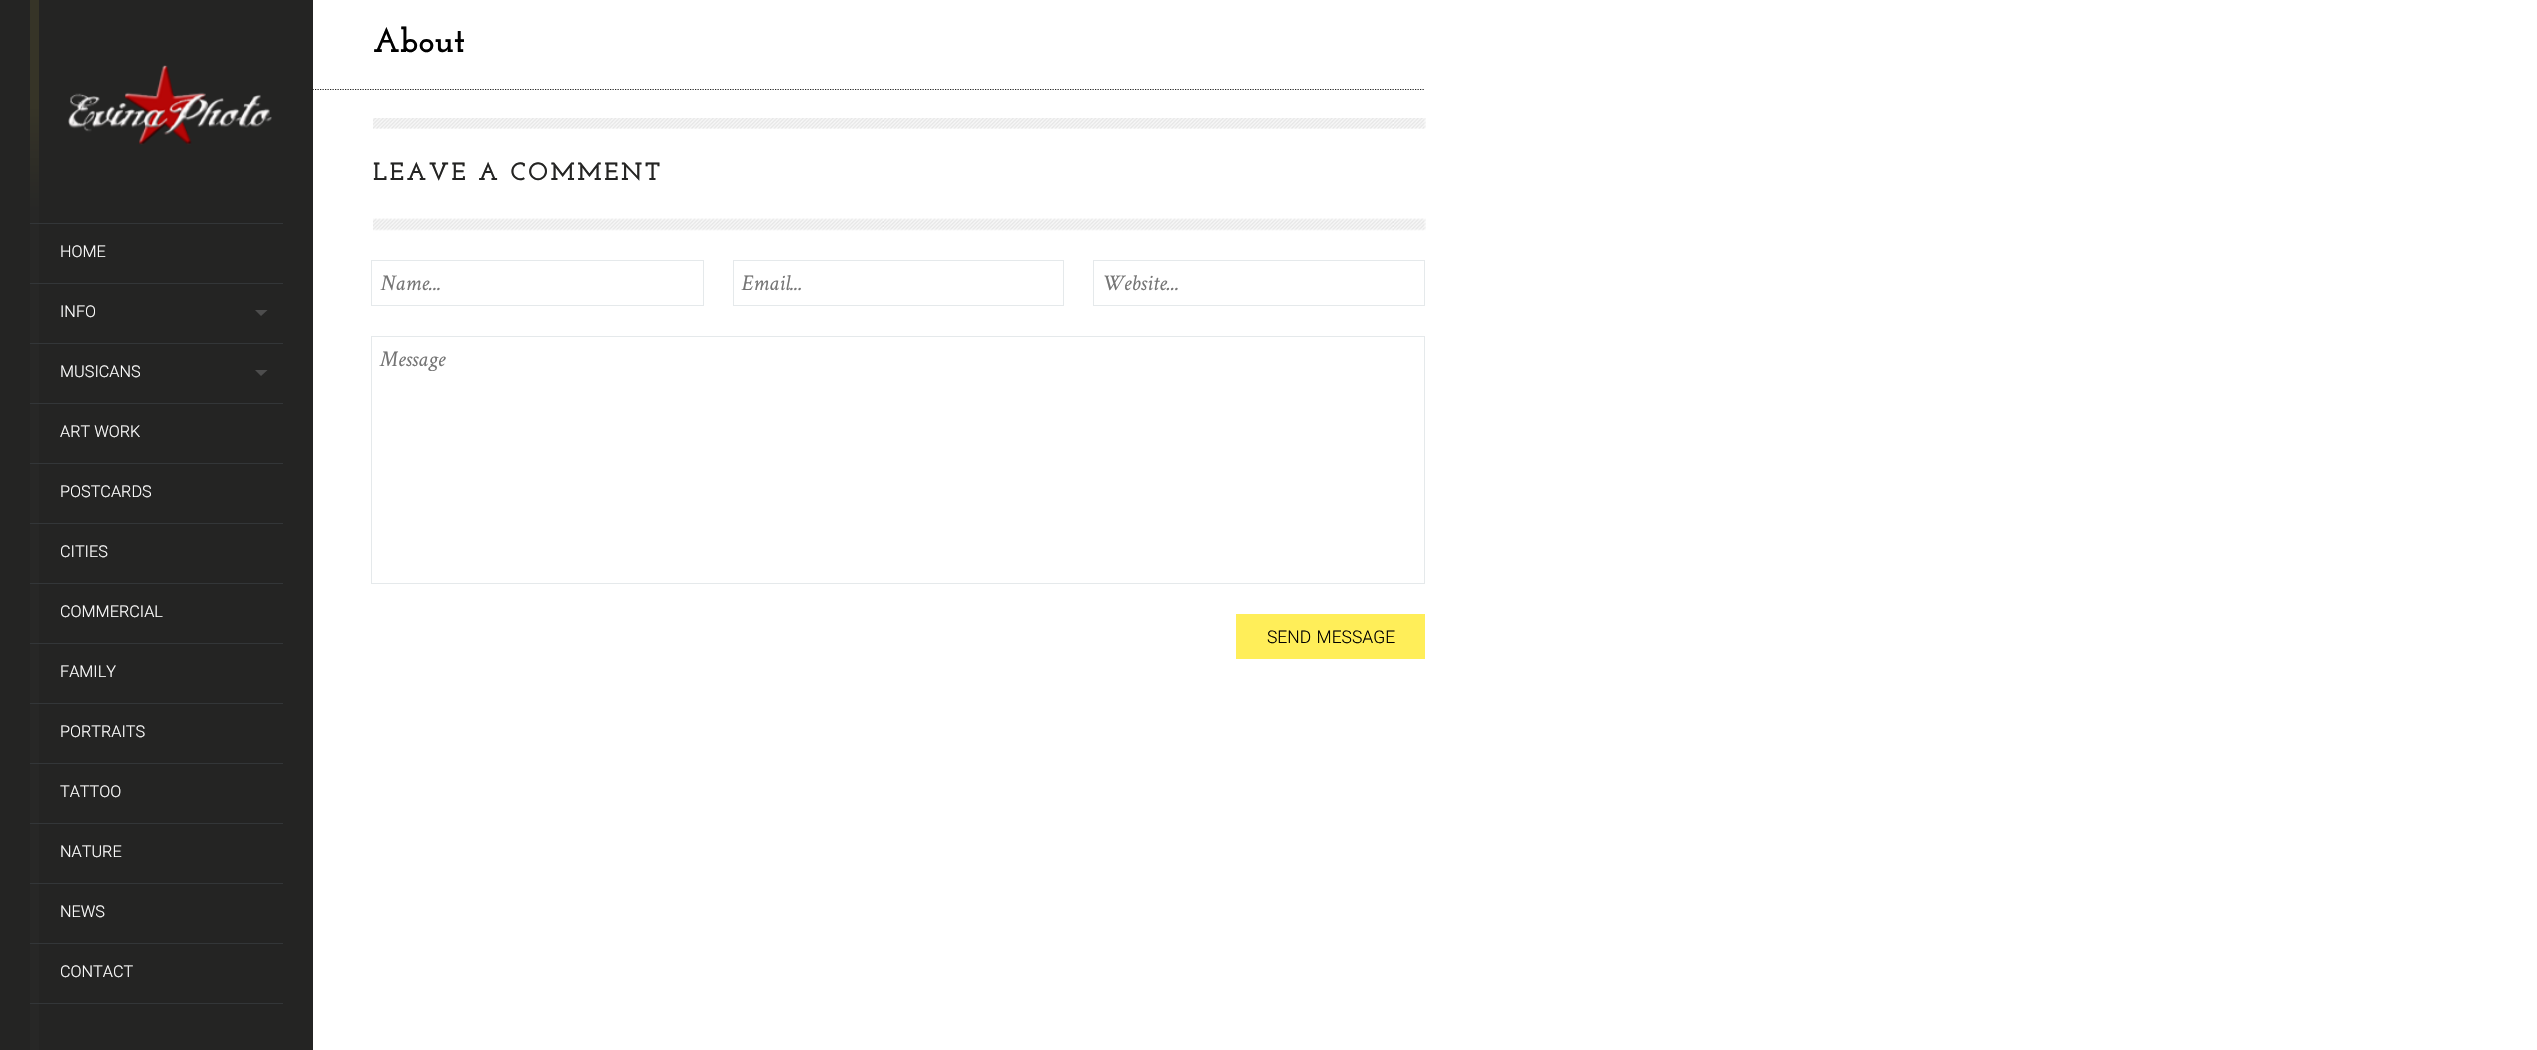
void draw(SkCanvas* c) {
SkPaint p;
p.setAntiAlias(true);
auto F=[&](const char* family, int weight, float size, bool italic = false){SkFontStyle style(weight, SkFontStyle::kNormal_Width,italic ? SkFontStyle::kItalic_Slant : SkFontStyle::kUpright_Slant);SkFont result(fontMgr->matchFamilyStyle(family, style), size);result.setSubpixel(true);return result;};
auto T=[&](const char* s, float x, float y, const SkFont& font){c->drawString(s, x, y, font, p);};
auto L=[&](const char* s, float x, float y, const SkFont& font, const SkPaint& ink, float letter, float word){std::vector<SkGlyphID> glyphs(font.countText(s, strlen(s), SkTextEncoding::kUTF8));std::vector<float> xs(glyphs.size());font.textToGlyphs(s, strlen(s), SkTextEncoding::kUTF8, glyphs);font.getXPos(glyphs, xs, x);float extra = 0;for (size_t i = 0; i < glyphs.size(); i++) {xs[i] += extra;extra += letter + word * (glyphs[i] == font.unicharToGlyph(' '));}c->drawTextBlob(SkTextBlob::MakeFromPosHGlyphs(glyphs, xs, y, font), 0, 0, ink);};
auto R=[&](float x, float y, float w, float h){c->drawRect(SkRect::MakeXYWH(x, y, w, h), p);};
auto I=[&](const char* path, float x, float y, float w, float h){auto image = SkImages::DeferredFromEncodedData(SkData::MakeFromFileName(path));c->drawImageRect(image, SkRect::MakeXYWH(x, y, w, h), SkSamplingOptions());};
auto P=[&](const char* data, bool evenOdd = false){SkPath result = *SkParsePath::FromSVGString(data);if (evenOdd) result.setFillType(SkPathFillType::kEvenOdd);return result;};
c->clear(0xffffffff);
p.setStroke(true);
p.setStrokeWidth(1.2);
p.setColor(0xff242423);
p.setPathEffect(SkDashPathEffect::Make({{1.25f,1.25f}}, 0));
c->drawPath(P("M312.5 89.5h1112.5"),p);
p.setPathEffect(nullptr);
p.setStroke(false);
R(0,0,313,1050);
p.setColor(0xff272726);
R(30,210,9,840);
{
const SkColor colors[] = {0xff363427,0xff272726};
const float stops[] = {.5,1};
const SkPoint ends[] = {{31,0}, {31,210}};
p.setShader(SkGradientShader::MakeLinear(ends, colors, stops, 2, SkTileMode::kClamp));
p.setAlpha(255);
}
R(30,0,9,210);
I("1.png",68,65,204,80);
p.setShader(nullptr);
p.setColor(0xff333638);
R(30,223,253,1);
R(30,283,253,1);
auto f1 = F("Roboto",300,16.25);
p.setColor(0xffffffff);
T("HOME",60,257,f1);
p.setColor(0xff333638);
R(30,343,253,1);
p.setColor(0xffffffff);
T("INFO",60,317,f1);
p.setColor(0xff4d4d4d);
c->drawPath(P("M255 310h12.5l-6.5 6z"),p);
p.setColor(0xff333638);
R(30,403,253,1);
p.setColor(0xffffffff);
T("MUSICANS",60,377,f1);
p.setColor(0xff4d4d4d);
c->drawPath(P("M255 370h12.5l-6.5 6z"),p);
p.setColor(0xff333638);
R(30,463,253,1);
p.setColor(0xffffffff);
T("ART WORK",60,437,f1);
p.setColor(0xff333638);
R(30,523,253,1);
p.setColor(0xffffffff);
T("POSTCARDS",60,497,f1);
p.setColor(0xff333638);
R(30,583,253,1);
p.setColor(0xffffffff);
T("CITIES",60,557,f1);
p.setColor(0xff333638);
R(30,643,253,1);
p.setColor(0xffffffff);
T("COMMERCIAL",60,617,f1);
p.setColor(0xff333638);
R(30,703,253,1);
p.setColor(0xffffffff);
T("FAMILY",60,677,f1);
p.setColor(0xff333638);
R(30,763,253,1);
p.setColor(0xffffffff);
T("PORTRAITS",60,737,f1);
p.setColor(0xff333638);
R(30,823,253,1);
p.setColor(0xffffffff);
T("TATTOO",60,797,f1);
p.setColor(0xff333638);
R(30,883,253,1);
p.setColor(0xffffffff);
T("NATURE",60,857,f1);
p.setColor(0xff333638);
R(30,943,253,1);
p.setColor(0xffffffff);
T("NEWS",60,917,f1);
p.setColor(0xff333638);
R(30,1003,253,1);
p.setColor(0xffffffff);
T("CONTACT",60,977,f1);
auto f2 = F("Josefin Slab",700,34);
p.setColor(0xff000000);
T("About",373,52,f2);
I("2.png",373,118,1053,11);
auto f3 = F("Josefin Slab",700,25);
p.setColor(0xff242423);
L("LEAVE A COMMENT",373,180,f3,p,2.5,0);
I("3.png",373,218,1053,13);
p.setStroke(true);
p.setStrokeWidth(1);
p.setColor(0xffe5e9eb);
c->drawRect(SkRect::MakeXYWH(371.5,260.5,332,45),p);
auto f4 = F("Crimson Text",400,22.5,true);
p.setStroke(false);
p.setColor(0xff757575);
T("Name...",380,290,f4);
p.setStroke(true);
p.setColor(0xffe5e9eb);
c->drawRect(SkRect::MakeXYWH(733.5,260.5,330,45),p);
p.setStroke(false);
p.setColor(0xff757575);
T("Email...",741,290,f4);
p.setStroke(true);
p.setColor(0xffe5e9eb);
c->drawRect(SkRect::MakeXYWH(1093.5,260.5,331,45),p);
p.setStroke(false);
p.setColor(0xff757575);
T("Website...",1102,290,f4);
p.setStroke(true);
p.setColor(0xffe5e9eb);
c->drawRect(SkRect::MakeXYWH(371.5,336.5,1053,247),p);
p.setStroke(false);
p.setColor(0xff757575);
T("Message",380,366,f4);
p.setColor(0xffffee59);
R(1236,614,189,45);
auto f5 = F("Roboto",300,17.5);
p.setColor(0xff000000);
L("SEND MESSAGE",1267,643,f5,p,0,1);
}
